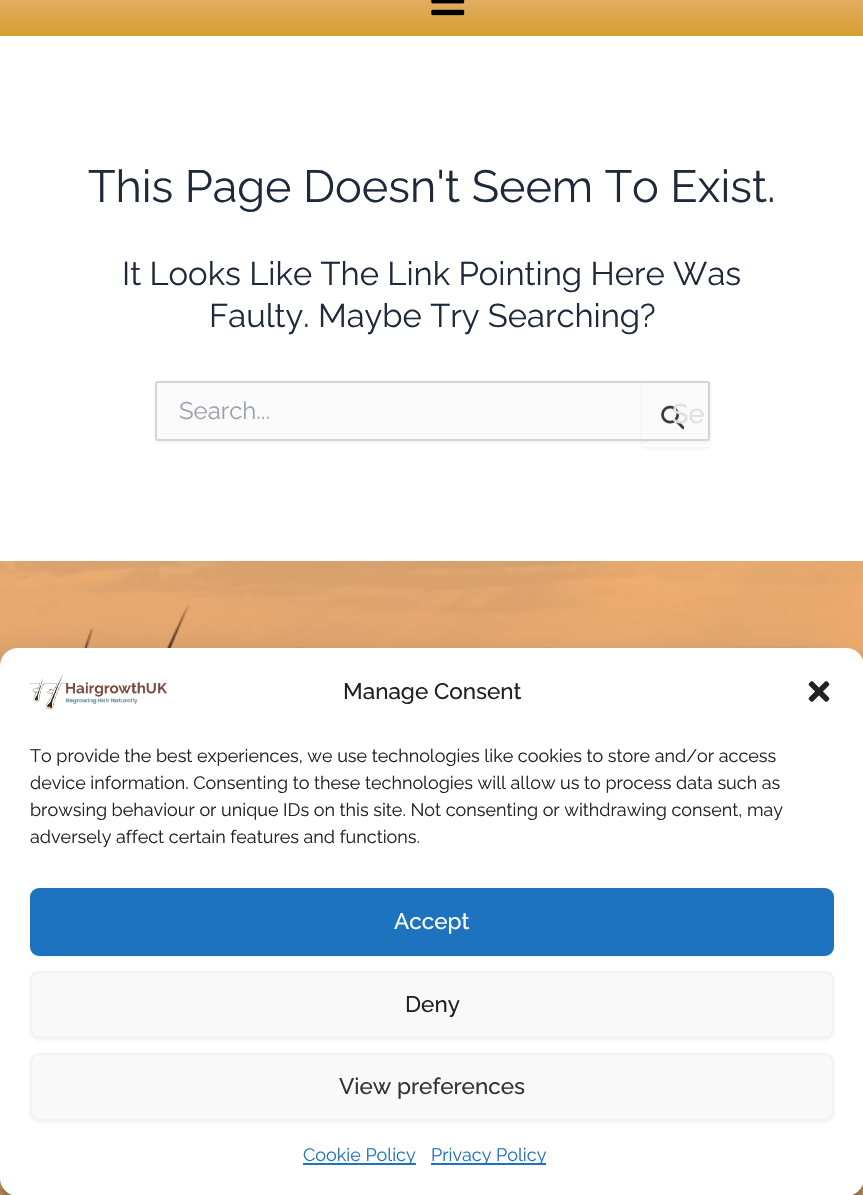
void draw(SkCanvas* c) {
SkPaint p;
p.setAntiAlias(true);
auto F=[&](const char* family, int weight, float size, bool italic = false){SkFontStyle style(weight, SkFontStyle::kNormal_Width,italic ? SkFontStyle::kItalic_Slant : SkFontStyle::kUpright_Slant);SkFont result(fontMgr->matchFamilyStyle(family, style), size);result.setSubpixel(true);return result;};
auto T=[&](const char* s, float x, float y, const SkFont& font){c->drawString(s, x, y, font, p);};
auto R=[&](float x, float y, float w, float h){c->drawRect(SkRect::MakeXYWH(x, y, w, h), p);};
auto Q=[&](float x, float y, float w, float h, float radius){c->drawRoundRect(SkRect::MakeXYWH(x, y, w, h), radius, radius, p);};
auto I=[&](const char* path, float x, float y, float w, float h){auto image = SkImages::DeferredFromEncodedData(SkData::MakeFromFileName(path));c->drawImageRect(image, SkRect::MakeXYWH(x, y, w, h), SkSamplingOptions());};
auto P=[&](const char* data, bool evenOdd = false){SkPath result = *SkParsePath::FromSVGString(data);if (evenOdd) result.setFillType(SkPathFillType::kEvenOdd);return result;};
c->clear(0xffffffff);
{
const SkColor colors[] = {0xffeab88c,0xffd69f2f};
const float stops[] = {0,1};
const SkPoint ends[] = {{432,-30}, {432,36}};
p.setShader(SkGradientShader::MakeLinear(ends, colors, stops, 2, SkTileMode::kClamp));
p.setAlpha(255);
}
R(0,0,863,36);
I("1.png",431,0,34,16);
auto f1 = F("Raleway",400,45);
p.setShader(nullptr);
p.setColor(0xff1e293b);
T("This Page Doesn't Seem To Exist.",88,202,f1);
auto f2 = F("Raleway",400,32.8);
T("It Looks Like The Link Pointing Here Was",122,285,f2);
T("Faulty. Maybe Try Searching?",209,327,f2);
p.setColor(0x0d000000);
p.setMaskFilter(SkMaskFilter::MakeBlur(kNormal_SkBlurStyle, 1.5));
c->drawRoundRect(SkRect::MakeXYWH(155,383,555,60),3,3,p);
p.setMaskFilter(nullptr);
p.setColor(0xfffafafa);
c->drawRoundRect(SkRect::MakeXYWH(156,382,553,58),2,2,p);
p.setStroke(true);
p.setStrokeWidth(2);
p.setColor(0xffd1d5db);
c->drawRoundRect(SkRect::MakeXYWH(156,382,553,58),2,2,p);
auto f3 = F("Raleway",400,24);
p.setStroke(false);
p.setColor(0xff9ca3af);
T("Search...",179,419,f3);
I("2.png",661,405,23,25);
c->save();
c->clipPath(P("M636 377h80v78h-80zm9 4h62c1.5 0 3 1.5 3 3v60c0 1.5-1.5 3-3 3h-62c-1.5 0-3-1.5-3-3v-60c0-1.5 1.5-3 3-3z",true),true);
p.setColor(0x0d000000);
p.setMaskFilter(SkMaskFilter::MakeBlur(kNormal_SkBlurStyle, 1.5));
c->drawRoundRect(SkRect::MakeXYWH(642,383,68,66),3,3,p);
p.setMaskFilter(nullptr);
c->restore();
auto f4 = F("Raleway",500,27);
p.setColor(0xffe0e0e0);
T("Se",672,423,f4);
I("3.png",0,561,863,634);
I("4.png",83,604,468,44);
p.setColor(0x3b000000);
p.setMaskFilter(SkMaskFilter::MakeBlur(kNormal_SkBlurStyle, 4.5));
c->drawRoundRect(SkRect::MakeXYWH(0,657,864,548),18,18,p);
p.setMaskFilter(nullptr);
p.setColor(0x30000000);
p.setMaskFilter(SkMaskFilter::MakeBlur(kNormal_SkBlurStyle, 15));
c->drawRoundRect(SkRect::MakeXYWH(0,663,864,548),18,18,p);
p.setMaskFilter(nullptr);
p.setColor(0xffffffff);
Q(0,648,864,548,18);
I("5.png",30,674,138,36);
auto f5 = F("Raleway",500,22.5);
p.setColor(0xff222222);
T("Manage Consent",343,699,f5);
I("6.png",808,681,22,21);
auto f6 = F("Raleway",400,18);
T("To provide the best experiences, we use technologies like cookies to store and/or access",30,762,f6);
T("device information. Consenting to these technologies will allow us to process data such as",30,789,f6);
T("browsing behaviour or unique IDs on this site. Not consenting or withdrawing consent, may",30,816,f6);
T("adversely affect certain features and functions.",30,843,f6);
p.setColor(0x0d000000);
p.setMaskFilter(SkMaskFilter::MakeBlur(kNormal_SkBlurStyle, 1.5));
c->drawRoundRect(SkRect::MakeXYWH(30,890,804,67),9,9,p);
p.setMaskFilter(nullptr);
p.setColor(0xff1e73be);
c->drawRoundRect(SkRect::MakeXYWH(31,889,802,66),8,8,p);
p.setStroke(true);
c->drawRoundRect(SkRect::MakeXYWH(31,889,802,66),8,8,p);
p.setStroke(false);
p.setColor(0xffffffff);
T("Accept",394,929,f5);
p.setColor(0x0d000000);
p.setMaskFilter(SkMaskFilter::MakeBlur(kNormal_SkBlurStyle, 1.5));
c->drawRoundRect(SkRect::MakeXYWH(30,972,804,68),9,9,p);
p.setMaskFilter(nullptr);
p.setColor(0xfff9f9f9);
c->drawRoundRect(SkRect::MakeXYWH(31,972,802,65),8,8,p);
p.setStroke(true);
p.setColor(0xfff2f2f2);
c->drawRoundRect(SkRect::MakeXYWH(31,972,802,65),8,8,p);
p.setStroke(false);
p.setColor(0xff222222);
T("Deny",405,1012,f5);
p.setColor(0x0d000000);
p.setMaskFilter(SkMaskFilter::MakeBlur(kNormal_SkBlurStyle, 1.5));
c->drawRoundRect(SkRect::MakeXYWH(30,1055,804,67),9,9,p);
p.setMaskFilter(nullptr);
p.setColor(0xfff9f9f9);
c->drawRoundRect(SkRect::MakeXYWH(31,1054,802,66),8,8,p);
p.setStroke(true);
p.setColor(0xfff2f2f2);
c->drawRoundRect(SkRect::MakeXYWH(31,1054,802,66),8,8,p);
p.setStroke(false);
p.setColor(0xff333333);
T("View preferences",339,1094,f5);
p.setColor(0xff1e73be);
R(303,1163,113,2);
T("Cookie Policy",303,1161,f6);
R(431,1163,115,2);
T("Privacy Policy",431,1161,f6);
}
